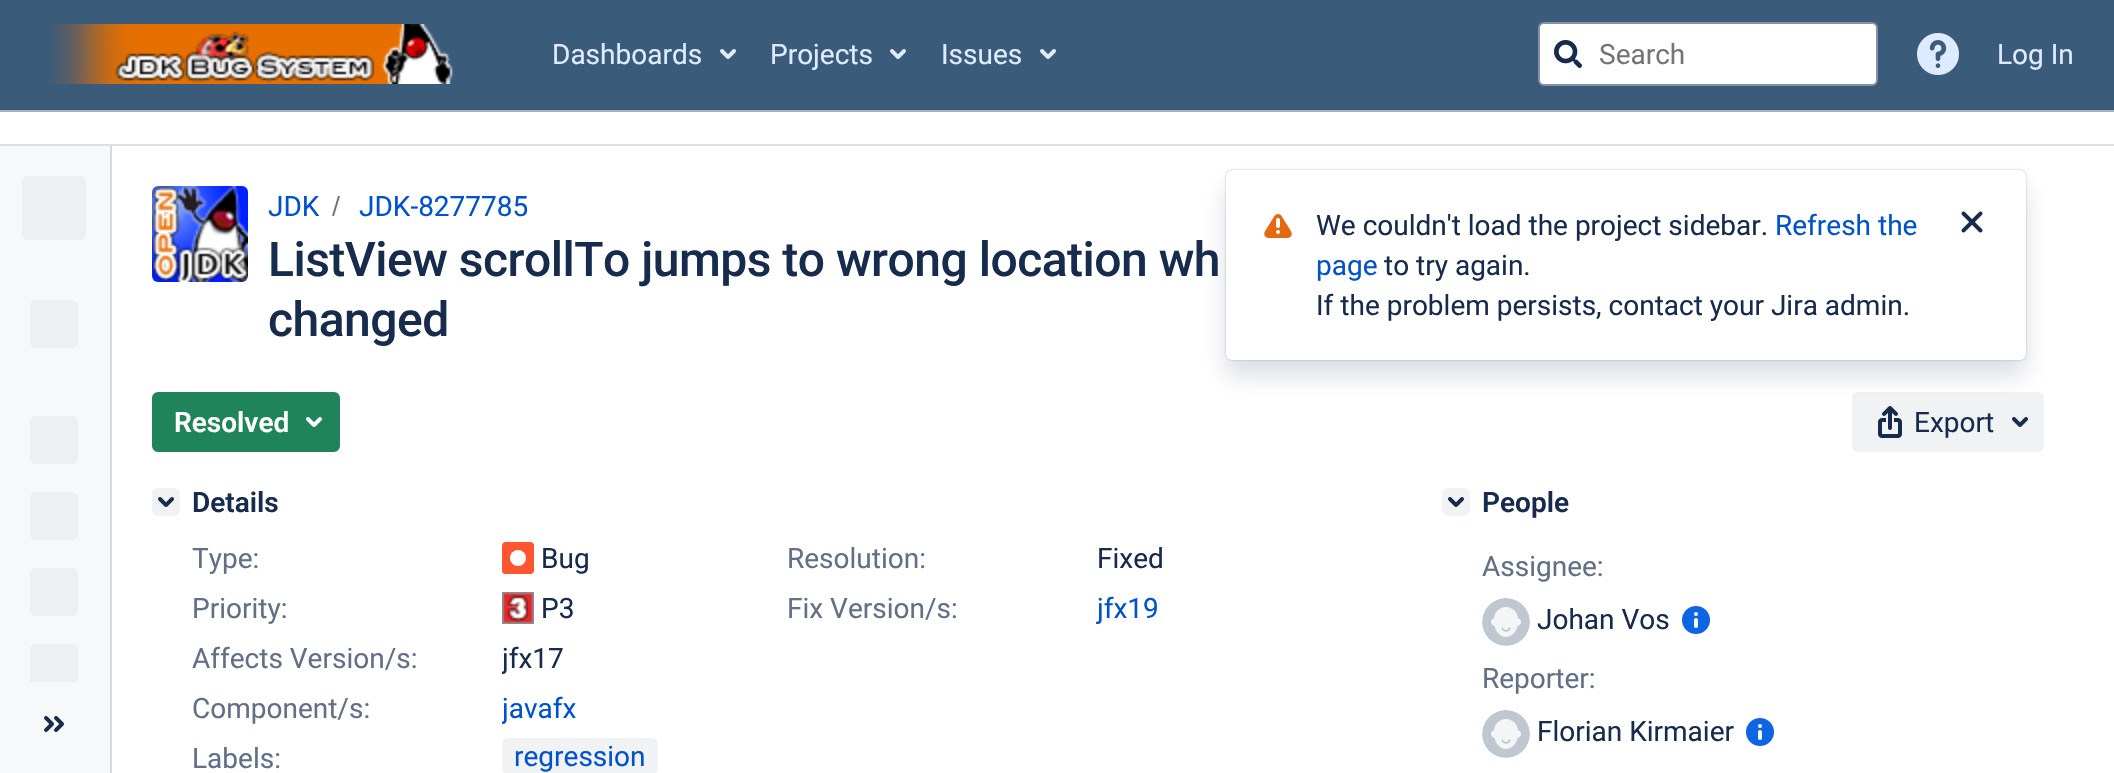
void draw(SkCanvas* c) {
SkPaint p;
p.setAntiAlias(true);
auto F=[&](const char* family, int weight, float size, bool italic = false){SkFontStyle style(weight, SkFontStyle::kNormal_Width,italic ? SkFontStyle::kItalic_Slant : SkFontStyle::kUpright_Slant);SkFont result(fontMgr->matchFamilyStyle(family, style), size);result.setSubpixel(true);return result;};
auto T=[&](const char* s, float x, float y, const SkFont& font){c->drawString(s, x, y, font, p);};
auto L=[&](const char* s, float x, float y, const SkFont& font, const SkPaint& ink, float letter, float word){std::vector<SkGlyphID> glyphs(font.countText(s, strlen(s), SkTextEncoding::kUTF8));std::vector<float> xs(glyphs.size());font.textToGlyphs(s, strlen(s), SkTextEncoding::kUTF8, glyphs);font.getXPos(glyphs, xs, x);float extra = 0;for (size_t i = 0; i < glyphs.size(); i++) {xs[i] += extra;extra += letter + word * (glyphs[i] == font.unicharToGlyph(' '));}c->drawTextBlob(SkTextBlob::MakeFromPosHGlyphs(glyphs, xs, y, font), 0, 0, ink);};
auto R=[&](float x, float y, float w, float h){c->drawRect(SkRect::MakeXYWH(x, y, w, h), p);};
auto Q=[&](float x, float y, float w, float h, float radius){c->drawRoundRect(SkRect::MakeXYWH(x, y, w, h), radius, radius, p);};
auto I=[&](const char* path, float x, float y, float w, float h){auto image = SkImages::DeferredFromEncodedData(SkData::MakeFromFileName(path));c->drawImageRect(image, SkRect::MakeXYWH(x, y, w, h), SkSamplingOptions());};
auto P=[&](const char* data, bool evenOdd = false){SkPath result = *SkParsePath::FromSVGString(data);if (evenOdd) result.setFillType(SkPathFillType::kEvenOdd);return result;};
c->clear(0xffffffff);
p.setColor(0xff3b5b7b);
R(0,0,2114,110);
p.setColor(0xffa4b3c4);
R(0,110,2114,2);
I("1.png",50,24,403,60);
auto f1 = F("Roboto",400,28);
p.setColor(0xffdeebff);
T("Dashboards",552,64,f1);
I("2.png",720,49,16,10);
T("Projects",770,64,f1);
I("2.png",890,49,16,10);
T("Issues",941,64,f1);
I("2.png",1040,49,16,10);
p.setColor(0xffffffff);
c->drawRoundRect(SkRect::MakeXYWH(1539,23,338,62),5,5,p);
p.setStroke(true);
p.setStrokeWidth(2);
p.setColor(0xff8590a2);
c->drawRoundRect(SkRect::MakeXYWH(1539,23,338,62),5,5,p);
I("3.png",1554,40,28,28);
p.setStroke(false);
p.setColor(0xff757575);
T("Search",1599,64,f1);
I("4.png",1917,33,42,42);
p.setColor(0xffdeebff);
T("Log In",1997,64,f1);
p.setColor(0xffdde0e5);
R(0,144,2114,2);
p.setColor(0xfff7f8f9);
R(0,146,110,627);
p.setColor(0xffd6d9df);
R(110,146,2,627);
p.setColor(0xffedeff2);
Q(22,176,64,64,6);
Q(30,300,48,48,6);
Q(30,416,48,48,6);
Q(30,492,48,48,6);
Q(30,568,48,48,6);
c->drawPath(P("M36 644h36c3.5 0 6 2.5 6 6v32h-48v-32c0-3.5 2.5-6 6-6z"),p);
I("5.png",44,716,20,16);
I("6.png",152,186,96,96);
p.setColor(0xff0052cc);
T("JDK",268,216,f1);
p.setColor(0xff707070);
c->drawPath(P("M334 216l6-20h-2l-6 20z"),p);
p.setColor(0xff0052cc);
T("JDK-8277785",359,216,f1);
auto f2 = F("Roboto",500,48);
p.setColor(0xff172b4d);
L("ListView scrollTo jumps to wrong location wh",268,276,f2,p,-.5,0);
L("changed",268,336,f2,p,-.5,0);
p.setColor(0xff1f845a);
c->drawRoundRect(SkRect::MakeXYWH(153,393,186,58),5,5,p);
p.setStroke(true);
c->drawRoundRect(SkRect::MakeXYWH(153,393,186,58),5,5,p);
auto f3 = F("Roboto",600,28);
p.setStroke(false);
p.setColor(0xffffffff);
T("Resolved",174,432,f3);
I("7.png",306,417,16,10);
p.setColor(0xfff0f2f4);
Q(1852,392,192,60,6);
I("8.png",1878,406,24,32);
p.setColor(0xff172b4d);
T("Export",1914,432,f1);
I("9.png",2012,417,16,10);
p.setColor(0xfff0f2f4);
Q(152,488,28,28,6);
I("10.png",158,497,16,10);
p.setColor(0xff172b4d);
T("Details",192,512,f3);
p.setColor(0xff626f86);
T("Type:",192,568,f1);
I("11.png",502,542,32,32);
p.setColor(0xff172b4d);
T("Bug",541,568,f1);
p.setColor(0xff626f86);
T("Resolution:",787,568,f1);
p.setColor(0xff172b4d);
T("Fixed",1097,568,f1);
p.setColor(0xff626f86);
T("Priority:",192,618,f1);
I("12.png",502,592,32,32);
p.setColor(0xff172b4d);
T("P3",541,618,f1);
p.setColor(0xff626f86);
T("Fix Version/s:",787,618,f1);
p.setColor(0xff0052cc);
T("jfx19",1097,618,f1);
p.setColor(0xff626f86);
T("Affects Version/s:",192,668,f1);
c->save();
c->clipRect(SkRect::MakeXYWH(502,638,62,40));
p.setColor(0xff172b4d);
T("jfx17",502,668,f1);
c->restore();
p.setColor(0xff626f86);
T("Component/s:",192,718,f1);
c->save();
c->clipRect(SkRect::MakeXYWH(502,688,74,40));
p.setColor(0xff0052cc);
T("javafx",502,718,f1);
c->restore();
p.setColor(0xff626f86);
T("Labels:",192,768,f1);
p.setColor(0xfff0f2f4);
Q(502,738,156,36,6);
p.setColor(0xff0052cc);
T("regression",514,766,f1);
p.setColor(0xfff0f2f4);
Q(1442,488,28,28,6);
I("10.png",1448,497,16,10);
p.setColor(0xff172b4d);
T("People",1482,512,f3);
p.setColor(0xff626f86);
T("Assignee:",1482,576,f1);
I("13.png",1482,598,48,48);
p.setColor(0xff172b4d);
T("Johan Vos",1537,629,f1);
I("14.png",1682,606,28,28);
p.setColor(0xff626f86);
T("Reporter:",1482,688,f1);
I("13.png",1482,710,48,48);
p.setColor(0xff172b4d);
T("Florian Kirmaier",1537,741,f1);
I("14.png",1746,718,28,28);
p.setColor(0x4f091e42);
p.setMaskFilter(SkMaskFilter::MakeBlur(kNormal_SkBlurStyle, 1));
c->drawRoundRect(SkRect::MakeXYWH(1226,170,800,190),6,6,p);
p.setMaskFilter(nullptr);
p.setColor(0x26091e42);
p.setMaskFilter(SkMaskFilter::MakeBlur(kNormal_SkBlurStyle, 12));
c->drawRoundRect(SkRect::MakeXYWH(1226,186,800,190),6,6,p);
p.setMaskFilter(nullptr);
p.setColor(0xffffffff);
Q(1226,170,800,190,6);
I("15.png",1264,214,28,24);
p.setColor(0xff172b4d);
T("We couldn't load the project sidebar.",1316,235,f1);
p.setColor(0xff0052cc);
T("Refresh the",1775,235,f1);
I("16.png",1961,211,22,22);
T("page",1316,275,f1);
p.setColor(0xff172b4d);
T("to try again.",1384,275,f1);
T("If the problem persists, contact your Jira admin.",1316,315,f1);
}
